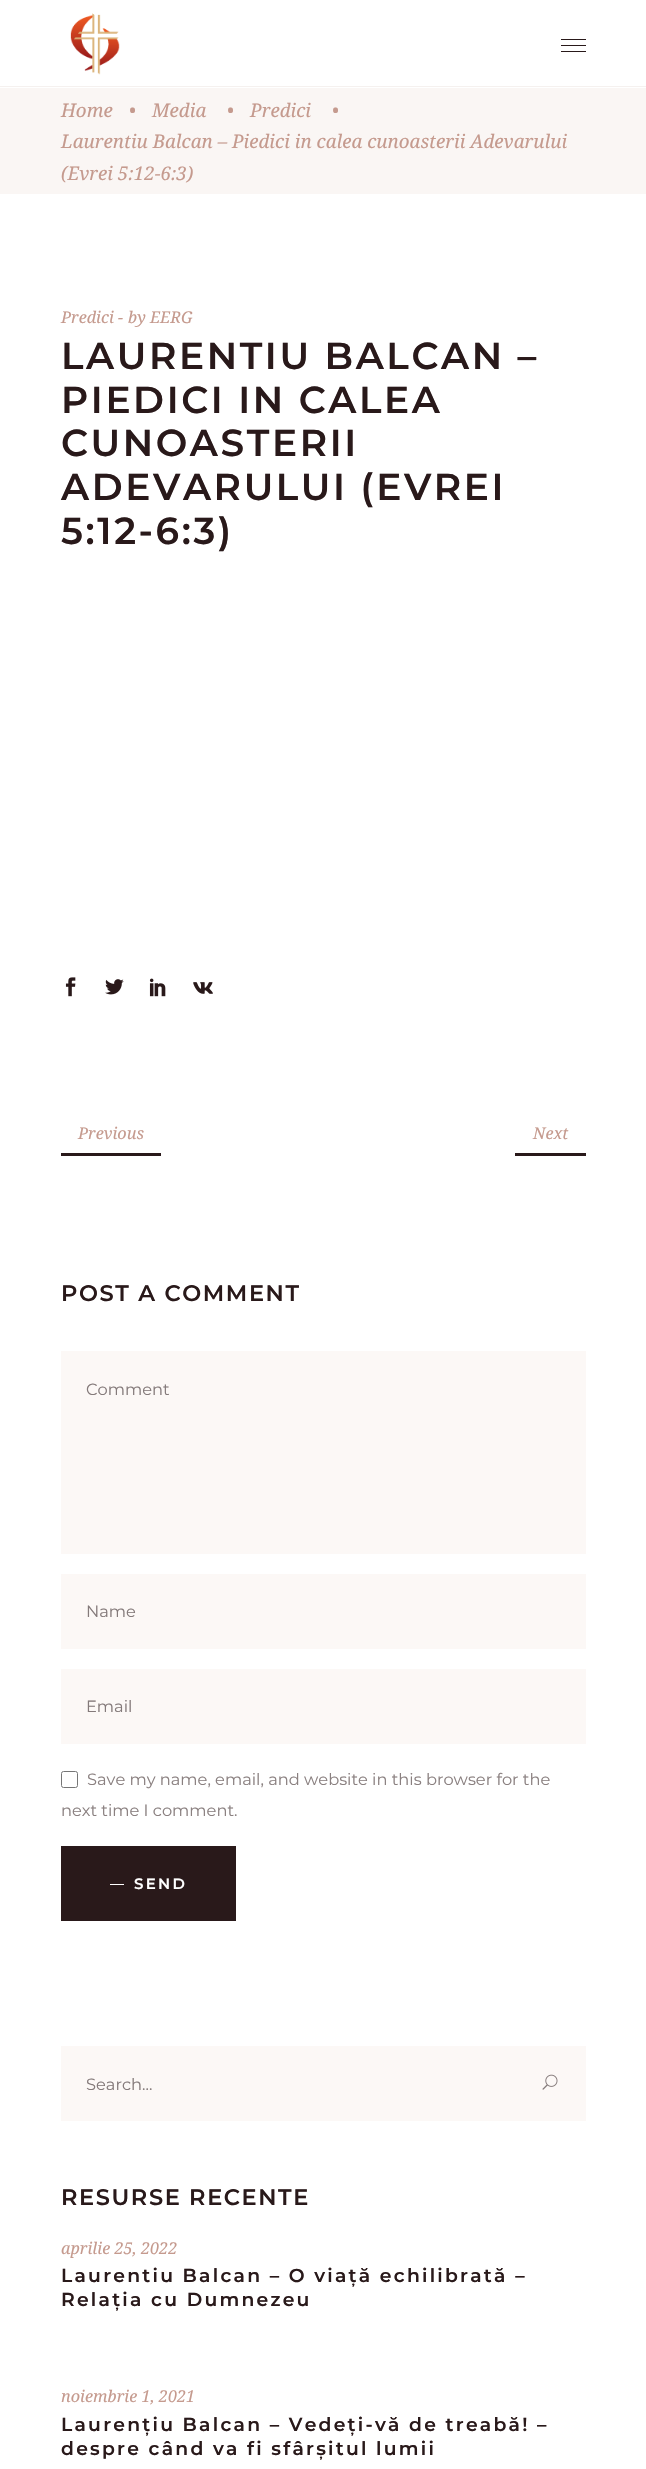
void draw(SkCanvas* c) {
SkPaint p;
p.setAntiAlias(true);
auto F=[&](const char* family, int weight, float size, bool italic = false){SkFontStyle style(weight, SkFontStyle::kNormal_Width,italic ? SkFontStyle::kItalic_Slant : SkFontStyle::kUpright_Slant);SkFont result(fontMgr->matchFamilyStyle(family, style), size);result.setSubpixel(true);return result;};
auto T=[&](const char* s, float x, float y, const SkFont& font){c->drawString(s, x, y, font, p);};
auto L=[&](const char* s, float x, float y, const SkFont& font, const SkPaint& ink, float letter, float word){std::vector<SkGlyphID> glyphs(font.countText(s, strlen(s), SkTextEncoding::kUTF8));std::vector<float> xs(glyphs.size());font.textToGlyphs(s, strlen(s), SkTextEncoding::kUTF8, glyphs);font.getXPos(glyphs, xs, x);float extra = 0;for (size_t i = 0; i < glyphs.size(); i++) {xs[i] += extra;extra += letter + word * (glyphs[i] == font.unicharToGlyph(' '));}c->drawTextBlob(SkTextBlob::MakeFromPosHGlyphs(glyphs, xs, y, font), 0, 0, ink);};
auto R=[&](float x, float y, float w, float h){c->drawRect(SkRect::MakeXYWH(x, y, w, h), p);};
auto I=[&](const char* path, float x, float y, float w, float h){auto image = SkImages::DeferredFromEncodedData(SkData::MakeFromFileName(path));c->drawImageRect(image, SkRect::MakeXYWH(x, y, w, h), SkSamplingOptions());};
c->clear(0xffffffff);
p.setColor(0xfff5f1ef);
R(0,86,646,1);
I("1.png",70,13,50,62);
p.setColor(0xff29191a);
R(561,39,25,1);
R(561,45,25,1);
R(561,51,25,1);
p.setColor(0xfffaf6f4);
R(0,88,646,106);
auto f1 = F("Noto Serif",400,18.75,true);
p.setColor(0xffc59a8e);
T("Home",61,117,f1);
T("•",129,117,f1);
T("Media",152,117,f1);
T("•",227,117,f1);
T("Predici",250,117,f1);
T("•",332,117,f1);
T("Laurentiu Balcan – Piedici in calea cunoasterii Adevarului",61,148,f1);
T("(Evrei 5:12-6:3)",61,180,f1);
auto f2 = F("Noto Serif",400,16.25,true);
T("Predici -",61,323,f2);
T("by EERG",128,323,f2);
auto f3 = F("Montserrat",600,37.5);
p.setColor(0xff29191a);
L("LAURENTIU BALCAN –",61,369,f3,p,2.6,0);
L("PIEDICI IN CALEA",61,413,f3,p,2.6,0);
L("CUNOASTERII",61,456,f3,p,2.6,0);
L("ADEVARULUI (EVREI",61,500,f3,p,2.6,0);
L("5:12-6:3)",61,544,f3,p,2.6,0);
I("2.png",65,977,11,20);
I("3.png",105,979,19,16);
I("4.png",149,978,17,19);
I("5.png",193,982,20,12);
p.setColor(0xffc59a8e);
T("Previous",78,1139,f2);
p.setColor(0xff29191a);
R(61,1153,100,3);
p.setColor(0xffc59a8e);
T("Next",533,1139,f2);
p.setColor(0xff29191a);
R(515,1153,71,3);
auto f4 = F("Montserrat",600,22.5);
L("POST A COMMENT",61,1301,f4,p,1.6,0);
p.setColor(0xfffcf8f6);
R(61,1351,525,203);
auto f5 = F("Montserrat",400,16.25);
p.setColor(0xff847a7a);
T("Comment",86,1395,f5);
p.setColor(0xfffcf8f6);
R(61,1574,525,75);
p.setColor(0xff847a7a);
T("Name",86,1617,f5);
p.setColor(0xfffcf8f6);
R(61,1669,525,75);
p.setColor(0xff847a7a);
T("Email",86,1712,f5);
p.setStroke(true);
p.setStrokeWidth(1);
p.setColor(0xff767676);
c->drawRoundRect(SkRect::MakeXYWH(61.5,1771.5,16,16),2,2,p);
p.setStroke(false);
p.setColor(0xff8a8080);
T("Save my name, email, and website in this browser for the",87,1785,f5);
T("next time I comment.",61,1816,f5);
p.setColor(0xff29191a);
R(61,1846,175,75);
p.setColor(0xffffffff);
R(110,1884,14,1);
auto f6 = F("Montserrat",600,15);
L("SEND",134,1889,f6,p,2.25,0);
p.setColor(0xfffcf8f6);
R(61,2046,525,75);
p.setColor(0xff847a7a);
T("Search...",86,2090,f5);
I("6.png",542,2074,16,16);
p.setColor(0xff29191a);
L("RESURSE RECENTE",61,2205,f4,p,1.6,0);
p.setColor(0xffc59a8e);
T("aprilie 25, 2022",61,2254,f2);
auto f7 = F("Montserrat",600,18.75);
p.setColor(0xff29191a);
L("Laurentiu Balcan – O viață echilibrată –",61,2282,f7,p,2.25,0);
L("Relația cu Dumnezeu",61,2306,f7,p,2.25,0);
p.setColor(0xffc59a8e);
T("noiembrie 1, 2021",61,2402,f2);
p.setColor(0xff29191a);
L("Laurențiu Balcan – Vedeți-vă de treabă! –",61,2431,f7,p,2.25,0);
L("despre când va fi sfârșitul lumii",61,2455,f7,p,2.25,0);
}
